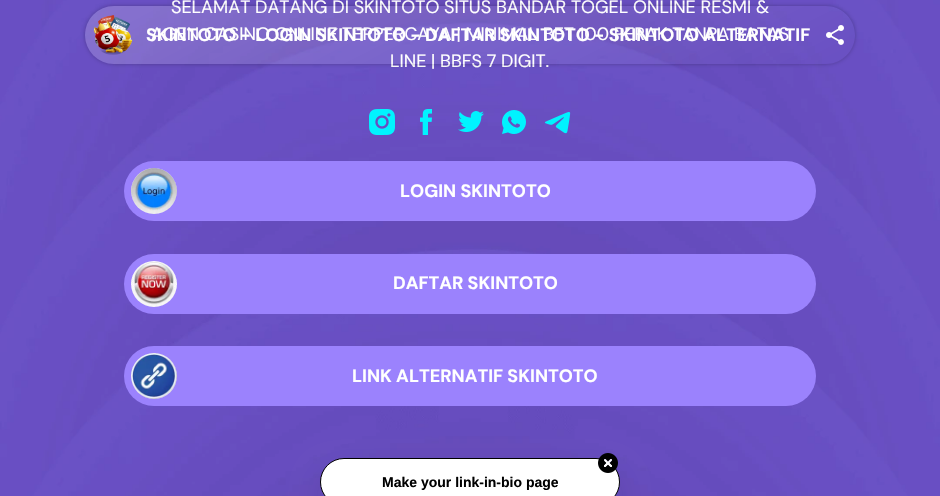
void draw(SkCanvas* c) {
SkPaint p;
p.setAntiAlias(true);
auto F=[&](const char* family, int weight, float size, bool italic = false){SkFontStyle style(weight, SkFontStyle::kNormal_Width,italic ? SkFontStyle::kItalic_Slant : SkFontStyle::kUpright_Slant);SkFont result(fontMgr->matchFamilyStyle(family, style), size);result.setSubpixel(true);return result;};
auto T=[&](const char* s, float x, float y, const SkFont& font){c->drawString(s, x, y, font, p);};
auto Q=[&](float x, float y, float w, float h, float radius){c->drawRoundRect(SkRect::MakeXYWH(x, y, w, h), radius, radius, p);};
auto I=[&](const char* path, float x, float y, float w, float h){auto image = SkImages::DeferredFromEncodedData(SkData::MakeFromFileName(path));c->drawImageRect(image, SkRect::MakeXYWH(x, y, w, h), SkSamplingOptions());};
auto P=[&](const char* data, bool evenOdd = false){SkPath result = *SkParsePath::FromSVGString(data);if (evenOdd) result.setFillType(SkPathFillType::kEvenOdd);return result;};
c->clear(0xffffffff);
I("1.png",0,0,940,496);
auto f1 = F("DM Sans",400,18);
p.setColor(0xffffffff);
T("SELAMAT DATANG DI SKINTOTO SITUS BANDAR TOGEL ONLINE RESMI &",171,13,f1);
T("AGEN CASINO ONLINE TERPERCAYA | MINIMAL BET 100 PERAK TANPA BATAS",151,40,f1);
T("LINE | BBFS 7 DIGIT.",390,67,f1);
I("2.png",369,109,26,26);
I("3.png",420,109,12,26);
I("4.png",458,111,26,21);
I("5.png",502,110,24,24);
I("6.png",544,112,27,22);
p.setColor(0xff9b82fd);
Q(124,161,692,60,30);
I("7.png",131,168,46,46);
auto f2 = F("DM Sans",700,18);
p.setColor(0xffffffff);
T("LOGIN SKINTOTO",400,197,f2);
p.setColor(0xff9b82fd);
Q(124,254,692,60,30);
I("8.png",131,261,46,46);
p.setColor(0xffffffff);
T("DAFTAR SKINTOTO",393,289,f2);
p.setColor(0xff9b82fd);
Q(124,346,692,60,30);
I("9.png",131,353,46,46);
p.setColor(0xffffffff);
T("LINK ALTERNATIF SKINTOTO",352,382,f2);
c->save();
c->clipPath(P("M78 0h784v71h-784zm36 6h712c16 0 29 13 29 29c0 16-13 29-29 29h-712c-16 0-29-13-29-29c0-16 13-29 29-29z",true),true);
p.setColor(0x40000000);
p.setMaskFilter(SkMaskFilter::MakeBlur(kNormal_SkBlurStyle, 2));
c->drawRoundRect(SkRect::MakeXYWH(85,6,770,58),29,29,p);
p.setMaskFilter(nullptr);
c->restore();
{
const SkColor colors[] = {0x33ffffff,0x00ffffff};
const float stops[] = {0,1};
const SkPoint ends[] = {{379,-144}, {561,214}};
p.setShader(SkGradientShader::MakeLinear(ends, colors, stops, 2, SkTileMode::kClamp));
p.setAlpha(255);
}
Q(85,6,770,58,29);
I("10.png",93,15,40,40);
p.setShader(nullptr);
p.setColor(0xffffffff);
T("SKINTOTO - LOGIN SKINTOTO - DAFTAR SKINTOTO - SKINTOTO ALTERNATIF",146,41,f2);
I("11.png",826,25,18,20);
p.setColor(0x1a191f3d);
p.setMaskFilter(SkMaskFilter::MakeBlur(kNormal_SkBlurStyle, 14));
c->drawRoundRect(SkRect::MakeXYWH(320,472,300,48),24,24,p);
p.setMaskFilter(nullptr);
p.setColor(0xffffffff);
c->drawRoundRect(SkRect::MakeXYWH(320.5,458.5,299,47),23.5,23.5,p);
p.setStroke(true);
p.setStrokeWidth(1);
p.setColor(0xff000000);
c->drawRoundRect(SkRect::MakeXYWH(320.5,458.5,299,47),23.5,23.5,p);
I("12.png",598,453,20,20);
auto f3 = F("Arimo",700,14);
p.setStroke(false);
T("Make your link-in-bio page",382,487,f3);
}
